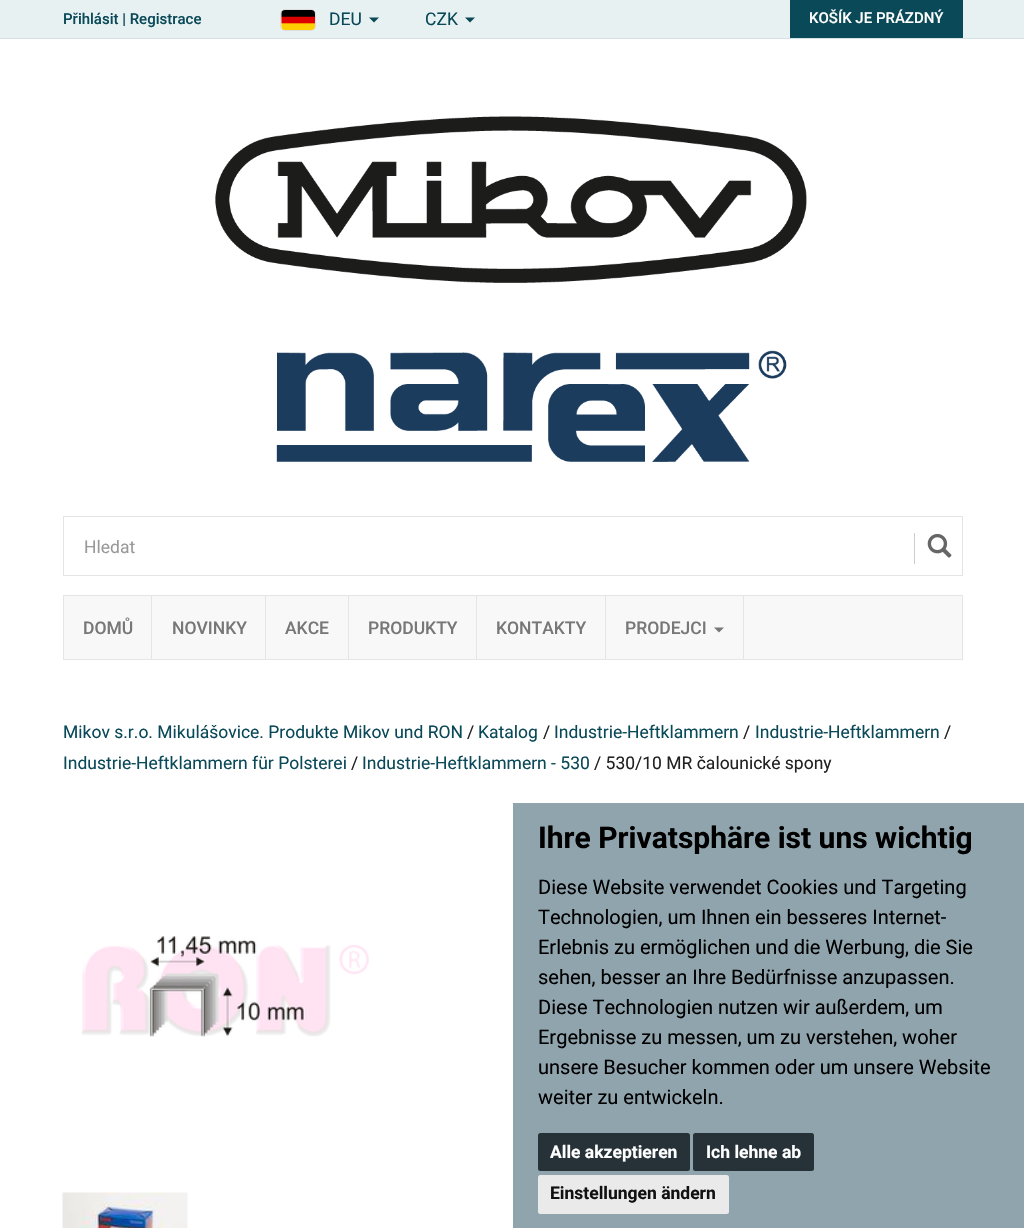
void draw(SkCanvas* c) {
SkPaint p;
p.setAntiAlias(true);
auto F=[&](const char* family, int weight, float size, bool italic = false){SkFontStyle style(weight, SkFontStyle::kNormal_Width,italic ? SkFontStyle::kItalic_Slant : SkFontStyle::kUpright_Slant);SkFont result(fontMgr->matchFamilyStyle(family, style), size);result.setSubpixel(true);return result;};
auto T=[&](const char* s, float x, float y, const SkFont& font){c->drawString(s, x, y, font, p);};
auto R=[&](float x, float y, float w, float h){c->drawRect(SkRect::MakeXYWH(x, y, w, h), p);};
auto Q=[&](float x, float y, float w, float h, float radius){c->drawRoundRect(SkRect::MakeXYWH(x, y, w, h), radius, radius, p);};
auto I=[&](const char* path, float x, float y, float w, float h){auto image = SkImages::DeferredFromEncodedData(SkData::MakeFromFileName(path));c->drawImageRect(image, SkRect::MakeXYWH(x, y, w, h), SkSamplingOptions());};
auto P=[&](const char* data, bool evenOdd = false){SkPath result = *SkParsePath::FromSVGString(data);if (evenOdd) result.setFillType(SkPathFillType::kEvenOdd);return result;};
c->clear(0xffffffff);
p.setColor(0xffe8f1f2);
R(0,0,1024,38);
p.setColor(0xffd5e2e4);
R(0,38,1024,1);
auto f1 = F("Roboto",500,15);
p.setColor(0xff0a4958);
T("Přihlásit | Registrace",63,24,f1);
p.setColor(0xffffffff);
c->drawRoundRect(SkRect::MakeXYWH(280.5,9.5,35,21),4.5,4.5,p);
p.setStroke(true);
p.setStrokeWidth(1);
p.setColor(0xffdddddd);
c->drawRoundRect(SkRect::MakeXYWH(280.5,9.5,35,21),4.5,4.5,p);
I("1.png",281,10,34,20);
auto f2 = F("Roboto",400,17.5);
p.setStroke(false);
p.setColor(0xff0a4958);
T("DEU",329,25,f2);
c->drawPath(P("M369 17.5h10l-5 5z"),p);
T("CZK",425,25,f2);
c->drawPath(P("M465 17.5h10l-5 5z"),p);
R(790,0,173,38);
p.setColor(0xffffffff);
T("KOŠÍK JE PRÁZDNÝ",809,23,f1);
I("2.png",215,116,592,346);
p.setStroke(true);
p.setColor(0xffe4e4e4);
c->drawRect(SkRect::MakeXYWH(63.5,516.5,899,59),p);
p.setStroke(false);
p.setColor(0xff999999);
T("Hledat",84,553,f2);
p.setColor(0xffcccccc);
R(914,533,1,31);
I("3.png",927,533,25,25);
p.setColor(0xfff8f8f8);
c->drawRect(SkRect::MakeXYWH(63.5,595.5,899,64),p);
p.setStroke(true);
p.setColor(0xffe5e5e5);
c->drawRect(SkRect::MakeXYWH(63.5,595.5,899,64),p);
p.setStroke(false);
R(151,596,1,63);
auto f3 = F("Roboto",500,17.5);
p.setColor(0xff777777);
T("DOMŮ",83,634,f3);
p.setColor(0xffe5e5e5);
R(265,596,1,63);
p.setColor(0xff777777);
T("NOVINKY",172,634,f3);
p.setColor(0xffe5e5e5);
R(348,596,1,63);
p.setColor(0xff777777);
T("AKCE",285,634,f3);
p.setColor(0xffe5e5e5);
R(476,596,1,63);
p.setColor(0xff777777);
T("PRODUKTY",368,634,f3);
p.setColor(0xffe5e5e5);
R(605,596,1,63);
p.setColor(0xff777777);
T("KONTAKTY",496,634,f3);
p.setColor(0xffe5e5e5);
R(743,596,1,63);
p.setColor(0xff777777);
T("PRODEJCI",625,634,f3);
c->drawPath(P("M714 627.5h10l-5 5z"),p);
p.setColor(0xff0a4958);
T("Mikov s.r.o. Mikulášovice. Produkte Mikov und RON",63,738,f2);
p.setColor(0xff222222);
T("/",467,738,f2);
p.setColor(0xff0a4958);
T("Katalog",478,738,f2);
p.setColor(0xff222222);
T("/",543,738,f2);
p.setColor(0xff0a4958);
T("Industrie-Heftklammern",554,738,f2);
p.setColor(0xff222222);
T("/",743,738,f2);
p.setColor(0xff0a4958);
T("Industrie-Heftklammern",755,738,f2);
p.setColor(0xff222222);
T("/",944,738,f2);
p.setColor(0xff0a4958);
T("Industrie-Heftklammern für Polsterei",63,769,f2);
p.setColor(0xff222222);
T("/",351,769,f2);
p.setColor(0xff0a4958);
T("Industrie-Heftklammern - 530",362,769,f2);
p.setColor(0xff222222);
T("/ 530/10 MR čalounické spony",594,769,f2);
I("4.png",81,936,288,101);
I("5.png",62,1192,126,36);
p.setColor(0xff90a4ae);
R(513,803,511,425);
auto f4 = F("Roboto",700,30);
p.setColor(0xff000000);
T("Ihre Privatsphäre ist uns wichtig",538,848,f4);
auto f5 = F("Roboto",400,20);
T("Diese Website verwendet Cookies und Targeting",538,894,f5);
T("Technologien, um Ihnen ein besseres Internet-",538,924,f5);
T("Erlebnis zu ermöglichen und die Werbung, die Sie",538,954,f5);
T("sehen, besser an Ihre Bedürfnisse anzupassen.",538,984,f5);
T("Diese Technologien nutzen wir außerdem, um",538,1014,f5);
T("Ergebnisse zu messen, um zu verstehen, woher",538,1044,f5);
T("unsere Besucher kommen oder um unsere Website",538,1074,f5);
T("weiter zu entwickeln.",538,1104,f5);
p.setColor(0xff263238);
Q(538,1133,152,38,2.5);
auto f6 = F("Roboto",700,17.5);
p.setColor(0xffffffff);
T("Alle akzeptieren",550,1158,f6);
p.setColor(0xff263238);
Q(693,1133,121,38,2.5);
p.setColor(0xffffffff);
T("Ich lehne ab",706,1158,f6);
p.setColor(0xffeaeaea);
Q(538,1175,191,39,2.5);
p.setColor(0xff111111);
T("Einstellungen ändern",550,1199,f6);
}
